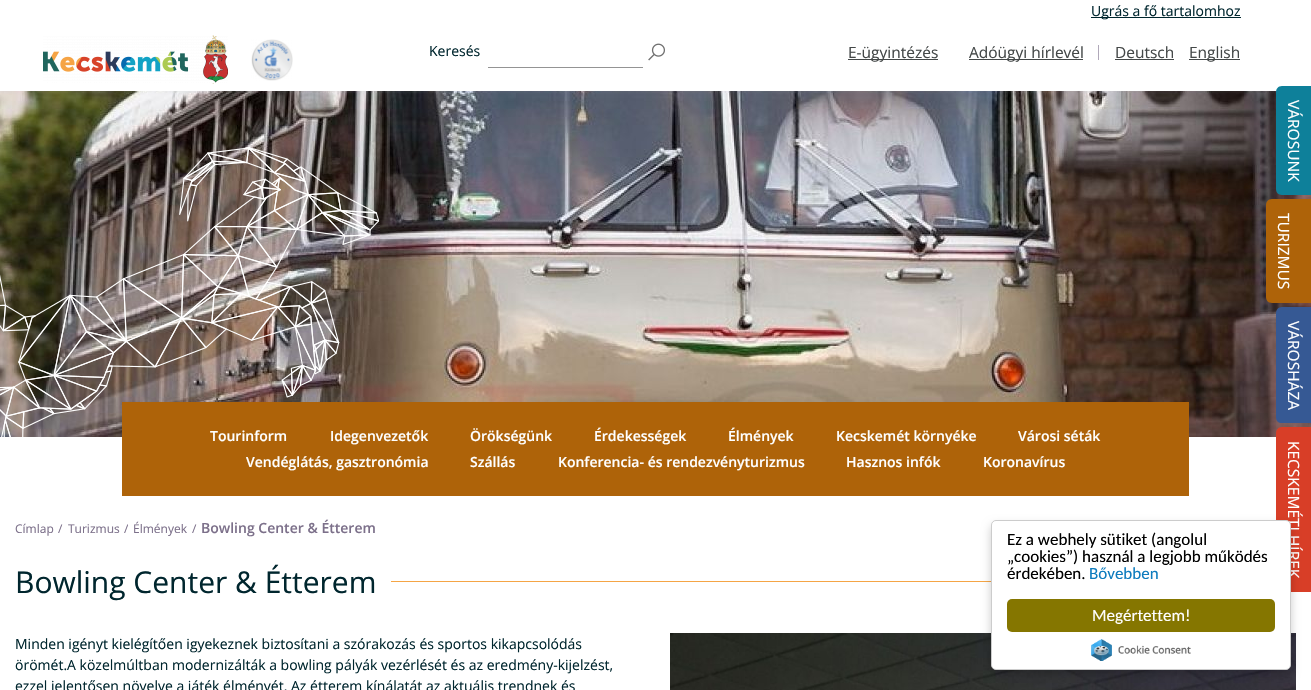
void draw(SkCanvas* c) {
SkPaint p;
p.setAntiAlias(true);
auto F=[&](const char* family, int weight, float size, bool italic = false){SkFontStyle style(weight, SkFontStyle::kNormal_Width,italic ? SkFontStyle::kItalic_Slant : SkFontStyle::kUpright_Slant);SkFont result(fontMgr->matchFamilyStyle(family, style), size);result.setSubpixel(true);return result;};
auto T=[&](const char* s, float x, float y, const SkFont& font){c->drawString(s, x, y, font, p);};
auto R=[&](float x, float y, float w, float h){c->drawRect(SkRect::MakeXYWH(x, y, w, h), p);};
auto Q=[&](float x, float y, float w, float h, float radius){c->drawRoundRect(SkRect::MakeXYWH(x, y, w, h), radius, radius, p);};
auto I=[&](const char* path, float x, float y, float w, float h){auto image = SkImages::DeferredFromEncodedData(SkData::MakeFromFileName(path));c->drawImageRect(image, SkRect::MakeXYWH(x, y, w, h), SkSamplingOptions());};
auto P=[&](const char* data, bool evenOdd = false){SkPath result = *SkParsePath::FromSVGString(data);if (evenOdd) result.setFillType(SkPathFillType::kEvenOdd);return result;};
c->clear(0xffffffff);
I("4.png",0,91,1311,346);
p.setColor(0x33b0a8b9);
p.setMaskFilter(SkMaskFilter::MakeBlur(kNormal_SkBlurStyle, 2.5));
c->drawRect(SkRect::MakeXYWH(0,0,1311,91),p);
p.setMaskFilter(nullptr);
p.setColor(0xffffffff);
R(0,0,1311,91);
p.setColor(0xff00262e);
R(1091,17,150,1);
auto f1 = F("Open Sans",400,14);
T("Ugrás a fő tartalomhoz",1091,16,f1);
I("1.png",43,35,185,49);
I("2.png",251,39,42,42);
T("Keresés",429,56,f1);
I("3.png",648,43,17,18);
p.setColor(0xff949494);
R(488,67,155,1);
p.setColor(0xffb0a8b9);
R(1098,45,1,15);
p.setColor(0xff444848);
R(848,59,90,1);
auto f2 = F("Open Sans",400,15.5);
T("E-ügyintézés",848,58,f2);
R(969,59,114,1);
T("Adóügyi hírlevél",969,58,f2);
T("Deutsch",1115,58,f2);
R(1115,59,59,1);
R(1189,59,51,1);
T("English",1189,58,f2);
p.setColor(0xff0e809a);
c->drawPath(P("M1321 86v109h-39c-4 0-6-3-6-6v-97c0-3 2-6 6-6z"),p);
p.setColor(0xffffffff);
c->save();
c->rotate(90,1288,100);
T("VÁROSUNK",1288,100,f2);
c->restore();
p.setColor(0xffae6309);
c->drawPath(P("M1311 199v104h-39c-4 0-6-3-6-6v-92c0-3 2-6 6-6z"),p);
p.setColor(0xffffffff);
c->save();
c->rotate(90,1278,213);
T("TURIZMUS",1278,213,f2);
c->restore();
p.setColor(0xff365994);
c->drawPath(P("M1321 307v116h-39c-4 0-6-2-6-6v-104c0-3 2-6 6-6z"),p);
p.setColor(0xffffffff);
c->save();
c->rotate(90,1288,321);
T("VÁROSHÁZA",1288,321,f2);
c->restore();
p.setColor(0xffd83e27);
c->drawPath(P("M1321 427v165h-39c-4 0-6-3-6-6v-153c0-3 2-6 6-6z"),p);
p.setColor(0xffffffff);
c->save();
c->rotate(90,1288,441);
T("KECSKEMÉTI HÍREK",1288,441,f2);
c->restore();
I("5.png",0,147,379,290);
p.setColor(0xffae6309);
R(122,402,1067,94);
auto f3 = F("Open Sans",600,14);
p.setColor(0xffffffff);
T("Tourinform",210,441,f3);
T("Idegenvezetők",330,441,f3);
T("Örökségünk",470,441,f3);
T("Érdekességek",594,441,f3);
T("Élmények",728,441,f3);
T("Kecskemét környéke",836,441,f3);
T("Városi séták",1018,441,f3);
T("Vendéglátás, gasztronómia",246,467,f3);
T("Szállás",470,467,f3);
T("Konferencia- és rendezvényturizmus",558,467,f3);
T("Hasznos infók",846,467,f3);
T("Koronavírus",983,467,f3);
auto f4 = F("Open Sans",400,12);
p.setColor(0xff7c708a);
T("Címlap",15,533,f4);
T("/",58,533,f4);
T("Turizmus",68,533,f4);
T("/",124,533,f4);
p.setColor(0xffffffff);
R(128,524,1,1);
p.setColor(0xff7c708a);
T("Élmények",133,533,f4);
T("/",192,533,f4);
T("Bowling Center & Étterem",201,533,f3);
auto f5 = F("Open Sans",400,30);
p.setColor(0xff00262e);
T("Bowling Center & Étterem",15,593,f5);
p.setColor(0xfff5a545);
R(391,581,600,1);
p.setColor(0xff00262e);
T("Minden igényt kielégítően igyekeznek biztosítani a szórakozás és sportos kikapcsolódás",15,649,f1);
T("örömét.A közelmúltban modernizálták a bowling pályák vezérlését és az eredmény-kijelzést,",15,670,f1);
T("ezzel jelentősen növelve a játék élményét. Az étterem kínálatát az aktuális trendnek és",15,691,f1);
I("6.png",670,633,626,57);
p.setColor(0x33000000);
p.setMaskFilter(SkMaskFilter::MakeBlur(kNormal_SkBlurStyle, 5));
c->drawRoundRect(SkRect::MakeXYWH(991,525,300,150),5,5,p);
p.setMaskFilter(nullptr);
p.setColor(0xffffffff);
c->drawRoundRect(SkRect::MakeXYWH(991.5,520.5,299,149),4.5,4.5,p);
p.setStroke(true);
p.setStrokeWidth(1);
p.setColor(0xffcccccc);
c->drawRoundRect(SkRect::MakeXYWH(991.5,520.5,299,149),4.5,4.5,p);
auto f6 = F("Carlito",400,17);
p.setStroke(false);
p.setColor(0xff000000);
T("Ez a webhely sütiket (angolul",1007,545,f6);
T("„cookies”) használ a legjobb működés",1007,562,f6);
T("érdekében.",1007,579,f6);
p.setColor(0xff0e7cbe);
T("Bővebben",1089,579,f6);
p.setColor(0xff857600);
Q(1007,599,268,33,5);
p.setColor(0xffffffff);
T("Megértettem!",1092,621,f6);
I("7.png",1091,639,100,22);
}
